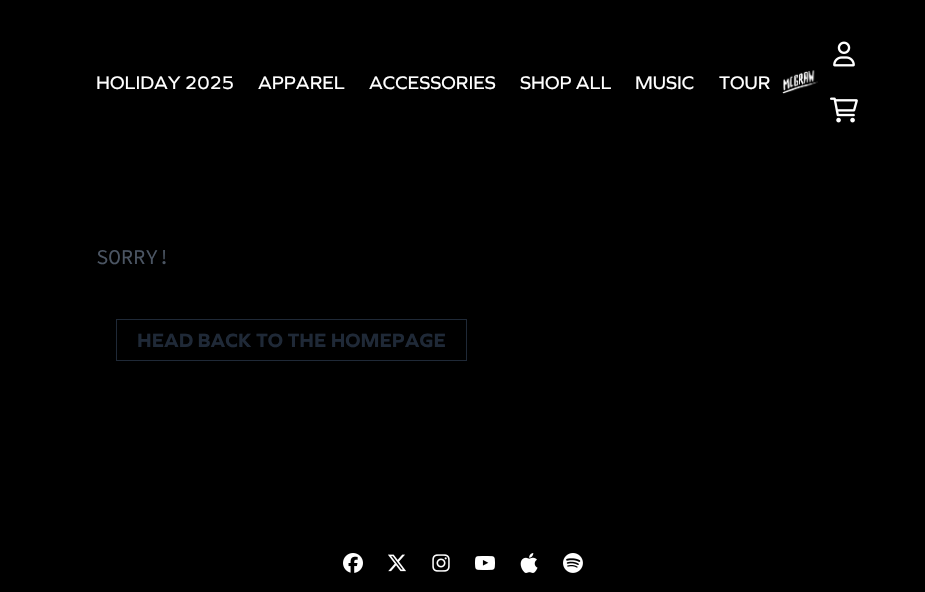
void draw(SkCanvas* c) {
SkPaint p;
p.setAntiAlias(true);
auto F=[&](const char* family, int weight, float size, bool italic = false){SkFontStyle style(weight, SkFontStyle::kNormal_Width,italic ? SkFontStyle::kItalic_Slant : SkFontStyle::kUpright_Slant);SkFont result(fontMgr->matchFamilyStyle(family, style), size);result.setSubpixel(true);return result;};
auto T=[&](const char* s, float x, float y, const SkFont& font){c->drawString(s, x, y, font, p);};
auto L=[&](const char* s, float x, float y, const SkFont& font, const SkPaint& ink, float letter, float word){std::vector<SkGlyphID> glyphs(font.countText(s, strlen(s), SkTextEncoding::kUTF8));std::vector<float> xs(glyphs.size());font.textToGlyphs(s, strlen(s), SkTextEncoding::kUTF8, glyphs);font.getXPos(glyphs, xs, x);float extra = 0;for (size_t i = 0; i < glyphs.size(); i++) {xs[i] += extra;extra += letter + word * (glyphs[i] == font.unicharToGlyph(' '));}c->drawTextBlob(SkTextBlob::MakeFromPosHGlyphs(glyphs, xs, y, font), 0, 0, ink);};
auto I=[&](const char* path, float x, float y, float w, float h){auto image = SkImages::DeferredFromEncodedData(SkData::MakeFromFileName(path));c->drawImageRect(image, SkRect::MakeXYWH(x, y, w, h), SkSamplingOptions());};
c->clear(0xff000000);
auto f1 = F("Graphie",400,19);
p.setColor(0xffffffff);
T("HOLIDAY 2025",96,89,f1);
T("APPAREL",258,89,f1);
T("ACCESSORIES",369,89,f1);
T("SHOP ALL",520,89,f1);
T("MUSIC",635,89,f1);
T("TOUR",719,89,f1);
I("1.png",782,70,36,24);
I("2.png",833,41,22,26);
I("3.png",830,97,28,26);
auto f2 = F("Source Code Pro",400,21);
p.setColor(0xff4b5563);
L("SORRY!",96,264,f2,p,-.25,0);
p.setStroke(true);
p.setStrokeWidth(1);
p.setColor(0xff1f2937);
c->drawRect(SkRect::MakeXYWH(116.5,319.5,350,41),p);
auto f3 = F("Graphie",700,20);
p.setStroke(false);
T("HEAD BACK TO THE HOMEPAGE",137,347,f3);
I("4.png",343,553,20,20);
I("5.png",388,554,18,18);
I("6.png",432,554,18,18);
I("7.png",475,556,20,14);
I("8.png",520,553,18,20);
I("9.png",563,553,20,20);
}
